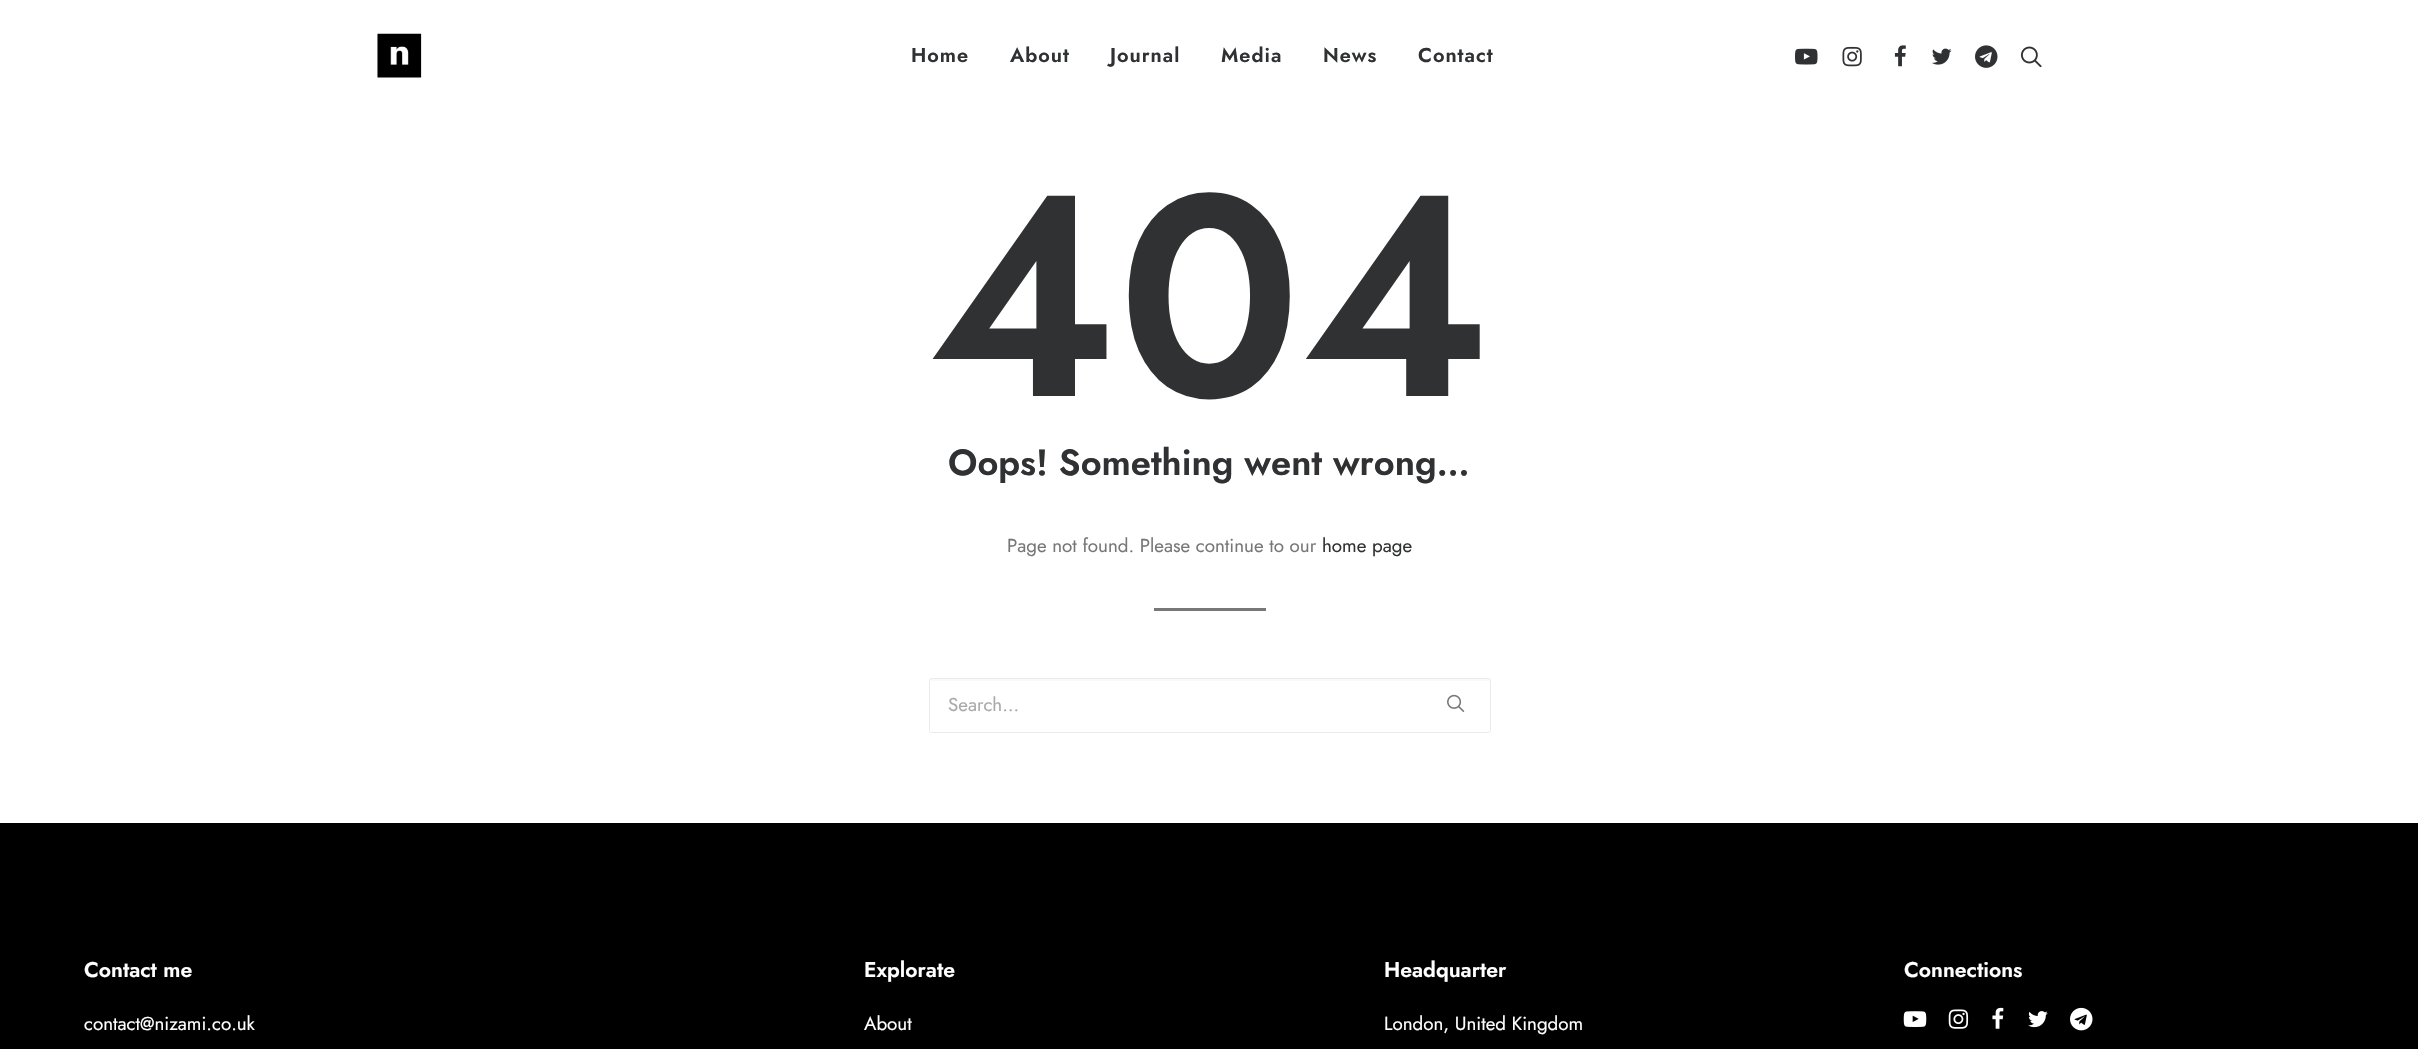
void draw(SkCanvas* c) {
SkPaint p;
p.setAntiAlias(true);
auto F=[&](const char* family, int weight, float size, bool italic = false){SkFontStyle style(weight, SkFontStyle::kNormal_Width,italic ? SkFontStyle::kItalic_Slant : SkFontStyle::kUpright_Slant);SkFont result(fontMgr->matchFamilyStyle(family, style), size);result.setSubpixel(true);return result;};
auto T=[&](const char* s, float x, float y, const SkFont& font){c->drawString(s, x, y, font, p);};
auto L=[&](const char* s, float x, float y, const SkFont& font, const SkPaint& ink, float letter, float word){std::vector<SkGlyphID> glyphs(font.countText(s, strlen(s), SkTextEncoding::kUTF8));std::vector<float> xs(glyphs.size());font.textToGlyphs(s, strlen(s), SkTextEncoding::kUTF8, glyphs);font.getXPos(glyphs, xs, x);float extra = 0;for (size_t i = 0; i < glyphs.size(); i++) {xs[i] += extra;extra += letter + word * (glyphs[i] == font.unicharToGlyph(' '));}c->drawTextBlob(SkTextBlob::MakeFromPosHGlyphs(glyphs, xs, y, font), 0, 0, ink);};
auto R=[&](float x, float y, float w, float h){c->drawRect(SkRect::MakeXYWH(x, y, w, h), p);};
auto I=[&](const char* path, float x, float y, float w, float h){auto image = SkImages::DeferredFromEncodedData(SkData::MakeFromFileName(path));c->drawImageRect(image, SkRect::MakeXYWH(x, y, w, h), SkSamplingOptions());};
auto P=[&](const char* data, bool evenOdd = false){SkPath result = *SkParsePath::FromSVGString(data);if (evenOdd) result.setFillType(SkPathFillType::kEvenOdd);return result;};
c->clear(0xffffffff);
I("1.png",377,33,45,45);
auto f1 = F("Jost",600,20);
p.setColor(0xff303133);
L("Home",911,62,f1,p,1,0);
L("About",1010,62,f1,p,1,0);
L("Journal",1110,62,f1,p,1,0);
L("Media",1221,62,f1,p,1,0);
L("News",1323,62,f1,p,1,0);
L("Contact",1418,62,f1,p,1,0);
I("2.png",1795,48,23,17);
I("3.png",1842,46,20,21);
I("4.png",1894,45,12,22);
I("5.png",1932,48,20,17);
I("6.png",1975,45,23,23);
I("7.png",2020,46,22,22);
auto f2 = F("Jost",600,286);
T("404",928,396,f2);
auto f3 = F("Jost",600,36.25);
T("Oops! Something went wrong…",948,475,f3);
auto f4 = F("Jost",400,18.75);
p.setColor(0xff777777);
T("Page not found. Please continue to our",1007,552,f4);
p.setColor(0xff303133);
T("home page",1322,552,f4);
p.setColor(0xff777777);
R(1154,608,112,3);
p.setColor(0xfff9f9f9);
c->drawPath(P("M931 681h558l1 1v-3h-1h-558c-1 0-1 2-1 3z"),p);
p.setStroke(true);
p.setStrokeWidth(1);
p.setColor(0xffeaeaea);
c->drawRoundRect(SkRect::MakeXYWH(929.5,678.5,561,54),2,2,p);
p.setStroke(false);
p.setColor(0xffa9a9a9);
T("Search…",948,711,f4);
I("8.png",1447,694,18,18);
p.setColor(0xff000000);
R(0,823,2418,226);
auto f5 = F("Jost",600,21.25);
p.setColor(0xffffffff);
T("Contact me",84,977,f5);
T("contact@nizami.co.uk",84,1030,f4);
T("Explorate",864,977,f5);
T("About",864,1030,f4);
T("Headquarter",1384,977,f5);
T("London, United Kingdom",1384,1030,f4);
T("Connections",1904,977,f5);
I("9.png",1903,1011,24,16);
I("10.png",1948,1009,21,20);
I("11.png",1992,1007,12,22);
I("12.png",2028,1011,20,17);
I("13.png",2070,1007,23,24);
}
